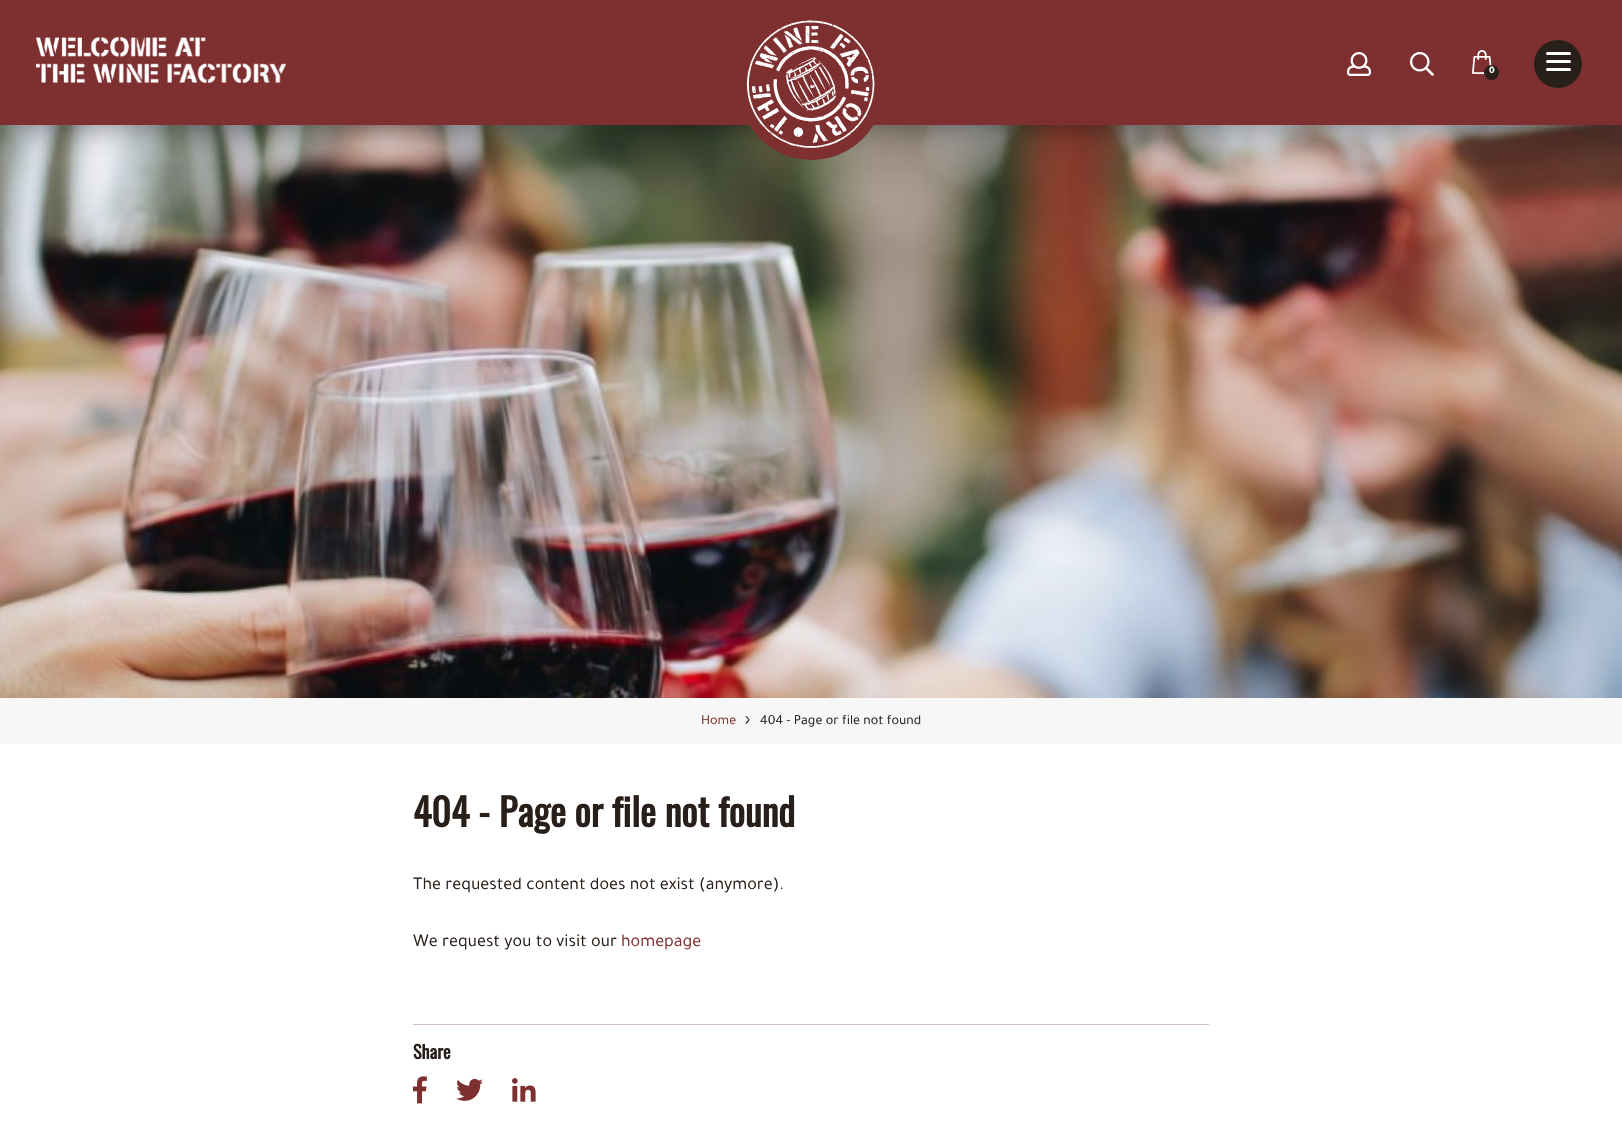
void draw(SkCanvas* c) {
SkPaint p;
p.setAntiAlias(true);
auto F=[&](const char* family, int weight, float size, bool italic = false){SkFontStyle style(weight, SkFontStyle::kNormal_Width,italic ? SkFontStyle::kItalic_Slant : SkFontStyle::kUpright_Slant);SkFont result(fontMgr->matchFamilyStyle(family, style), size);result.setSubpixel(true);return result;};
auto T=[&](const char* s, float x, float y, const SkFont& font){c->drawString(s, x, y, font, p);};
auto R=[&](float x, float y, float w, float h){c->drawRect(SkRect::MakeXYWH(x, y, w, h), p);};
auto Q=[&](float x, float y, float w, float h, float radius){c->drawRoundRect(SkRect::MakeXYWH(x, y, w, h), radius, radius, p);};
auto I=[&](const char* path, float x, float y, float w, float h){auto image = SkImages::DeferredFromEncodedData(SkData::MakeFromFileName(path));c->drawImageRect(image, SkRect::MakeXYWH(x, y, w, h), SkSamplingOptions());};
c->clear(0xffffffff);
I("6.png",0,125,1622,573);
p.setColor(0x78000000);
p.setMaskFilter(SkMaskFilter::MakeBlur(kNormal_SkBlurStyle, 15.5));
c->drawRect(SkRect::MakeXYWH(9,19,1604,107),p);
p.setMaskFilter(nullptr);
p.setColor(0xff7e2f30);
R(0,0,1622,125);
I("1.png",36,37,250,46);
c->drawCircle(811.5,87.5,72.5,p);
I("2.png",746,20,129,128);
I("3.png",1347,52,24,24);
I("4.png",1410,52,24,24);
I("5.png",1472,50,20,24);
p.setColor(0xff281f1a);
c->drawCircle(1491.5,72.5,7.5,p);
auto f1 = F("Tajawal",700,10);
p.setColor(0xffffffff);
T("0",1489,73,f1);
p.setColor(0xff281f1a);
c->drawCircle(1558,64,24,p);
p.setColor(0xffffffff);
Q(1546,52,25,3,1.5);
Q(1546,60,25,3,1.5);
Q(1546,68,25,3,1.5);
p.setColor(0xfff7f7f7);
R(0,698,1622,46);
auto f2 = F("Tajawal",400,14);
p.setColor(0xff7e2f30);
T("Home",701,724,f2);
auto f3 = F("Tajawal",400,18);
p.setColor(0xff281f1a);
T("›",745,724,f3);
T("404 - Page or file not found",760,724,f2);
auto f4 = F("Oswald",700,38);
T("404 - Page or file not found",413,827,f4);
T("The requested content does not exist (anymore).",413,889,f3);
T("We request you to visit our",413,946,f3);
p.setColor(0xff7e2f30);
T("homepage",621,946,f3);
p.setColor(0xffd3c2c2);
R(413,1024,796,1);
auto f5 = F("Oswald",700,18);
p.setColor(0xff281f1a);
T("Share",413,1059,f5);
I("7.png",413,1076,14,28);
I("8.png",456,1078,27,23);
I("9.png",512,1078,24,24);
}
